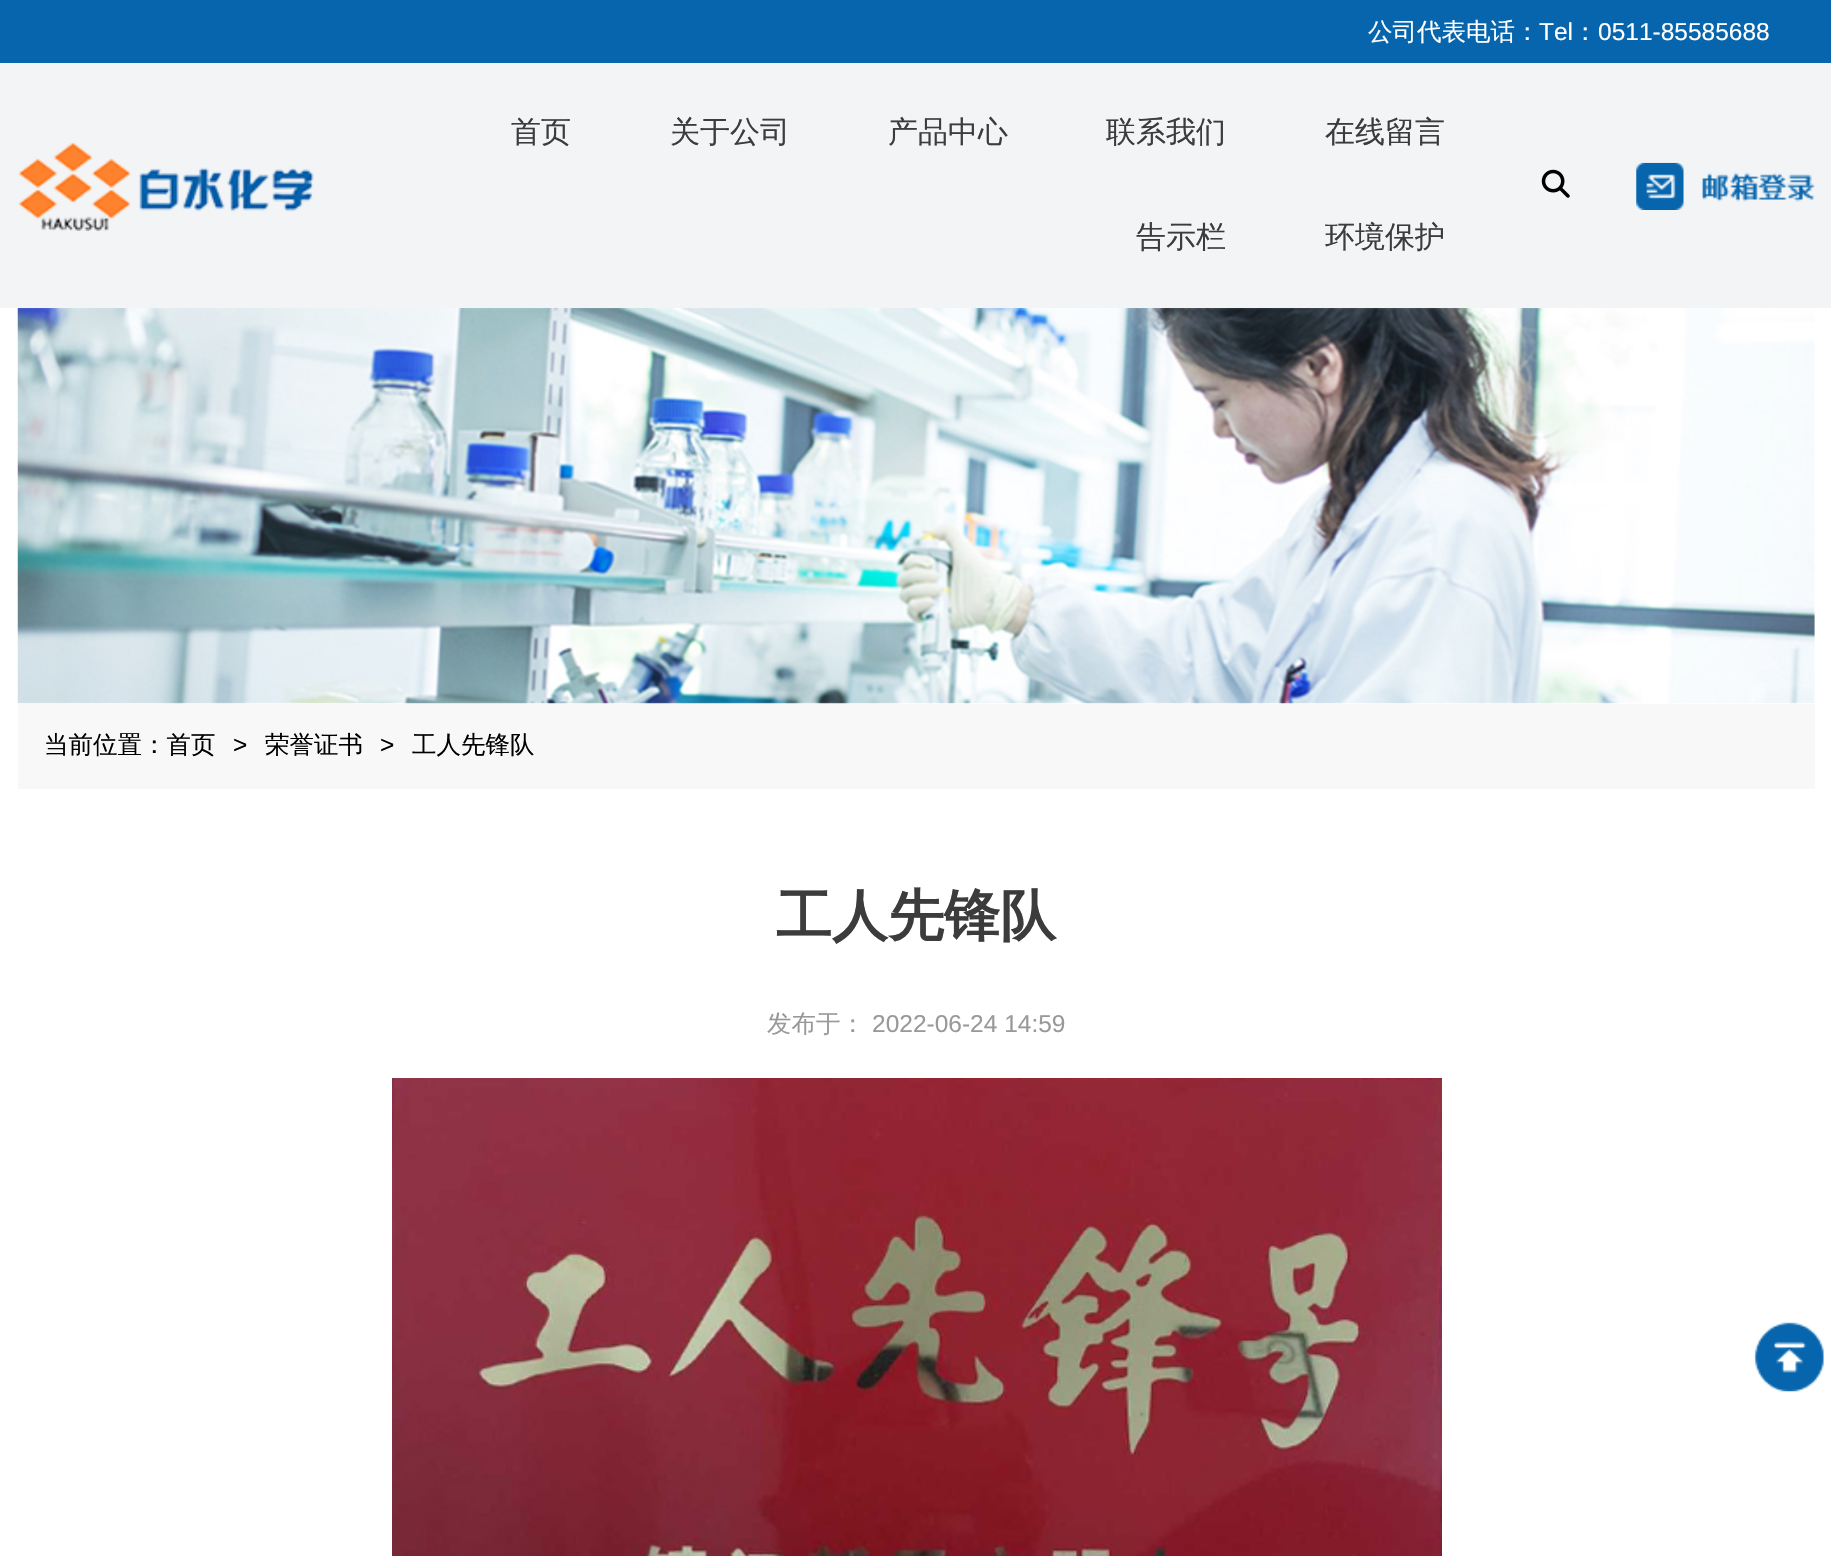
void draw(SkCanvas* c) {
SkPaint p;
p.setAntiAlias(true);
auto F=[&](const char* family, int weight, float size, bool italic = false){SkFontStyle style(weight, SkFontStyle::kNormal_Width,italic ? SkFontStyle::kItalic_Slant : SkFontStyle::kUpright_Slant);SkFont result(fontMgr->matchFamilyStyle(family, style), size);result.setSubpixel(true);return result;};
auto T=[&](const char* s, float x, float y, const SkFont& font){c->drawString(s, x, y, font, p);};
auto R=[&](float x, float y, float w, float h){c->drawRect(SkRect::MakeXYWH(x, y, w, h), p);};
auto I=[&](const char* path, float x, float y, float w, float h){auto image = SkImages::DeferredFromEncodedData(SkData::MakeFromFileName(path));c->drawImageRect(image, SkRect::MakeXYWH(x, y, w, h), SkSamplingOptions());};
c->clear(0xffffffff);
p.setColor(0xff0665ad);
R(0,0,1831,63);
auto f1 = F("WenQuanYi Zen Hei",500,24.5);
p.setColor(0xffffffff);
T("公司代表电话：",1368,40,f1);
auto f2 = F("Liberation Sans",400,24.5);
T("Tel",1539,40,f2);
T("：",1573,40,f1);
T("0511-85585688",1598,40,f2);
p.setColor(0xfff3f4f6);
R(0,63,1831,245);
I("1.png",18,142,296,89);
auto f3 = F("WenQuanYi Zen Hei",500,30);
p.setColor(0xff3c3c3c);
T("首页",511,142,f3);
T("关于公司",670,142,f3);
T("产品中心",888,142,f3);
T("联系我们",1106,142,f3);
T("在线留言",1325,142,f3);
T("告示栏",1136,247,f3);
T("环境保护",1325,247,f3);
I("2.png",1541,169,29,29);
I("3.png",1636,162,179,48);
I("4.png",17,308,1798,396);
p.setColor(0xfff8f8f8);
R(18,704,1797,85);
p.setColor(0xff000000);
T("当前位置：首页",44,753,f1);
T(">",233,753,f2);
T("荣誉证书",265,753,f1);
T(">",380,753,f2);
T("工人先锋队",412,753,f1);
auto f4 = F("WenQuanYi Zen Hei",700,56);
p.setColor(0xff3c3c3c);
T("工人先锋队",776,935,f4);
p.setColor(0xff999999);
T("发布于：",767,1032,f1);
T("2022-06-24 14:59",872,1032,f2);
I("5.png",392,1078,1050,478);
I("6.png",1754,1322,70,70);
}
